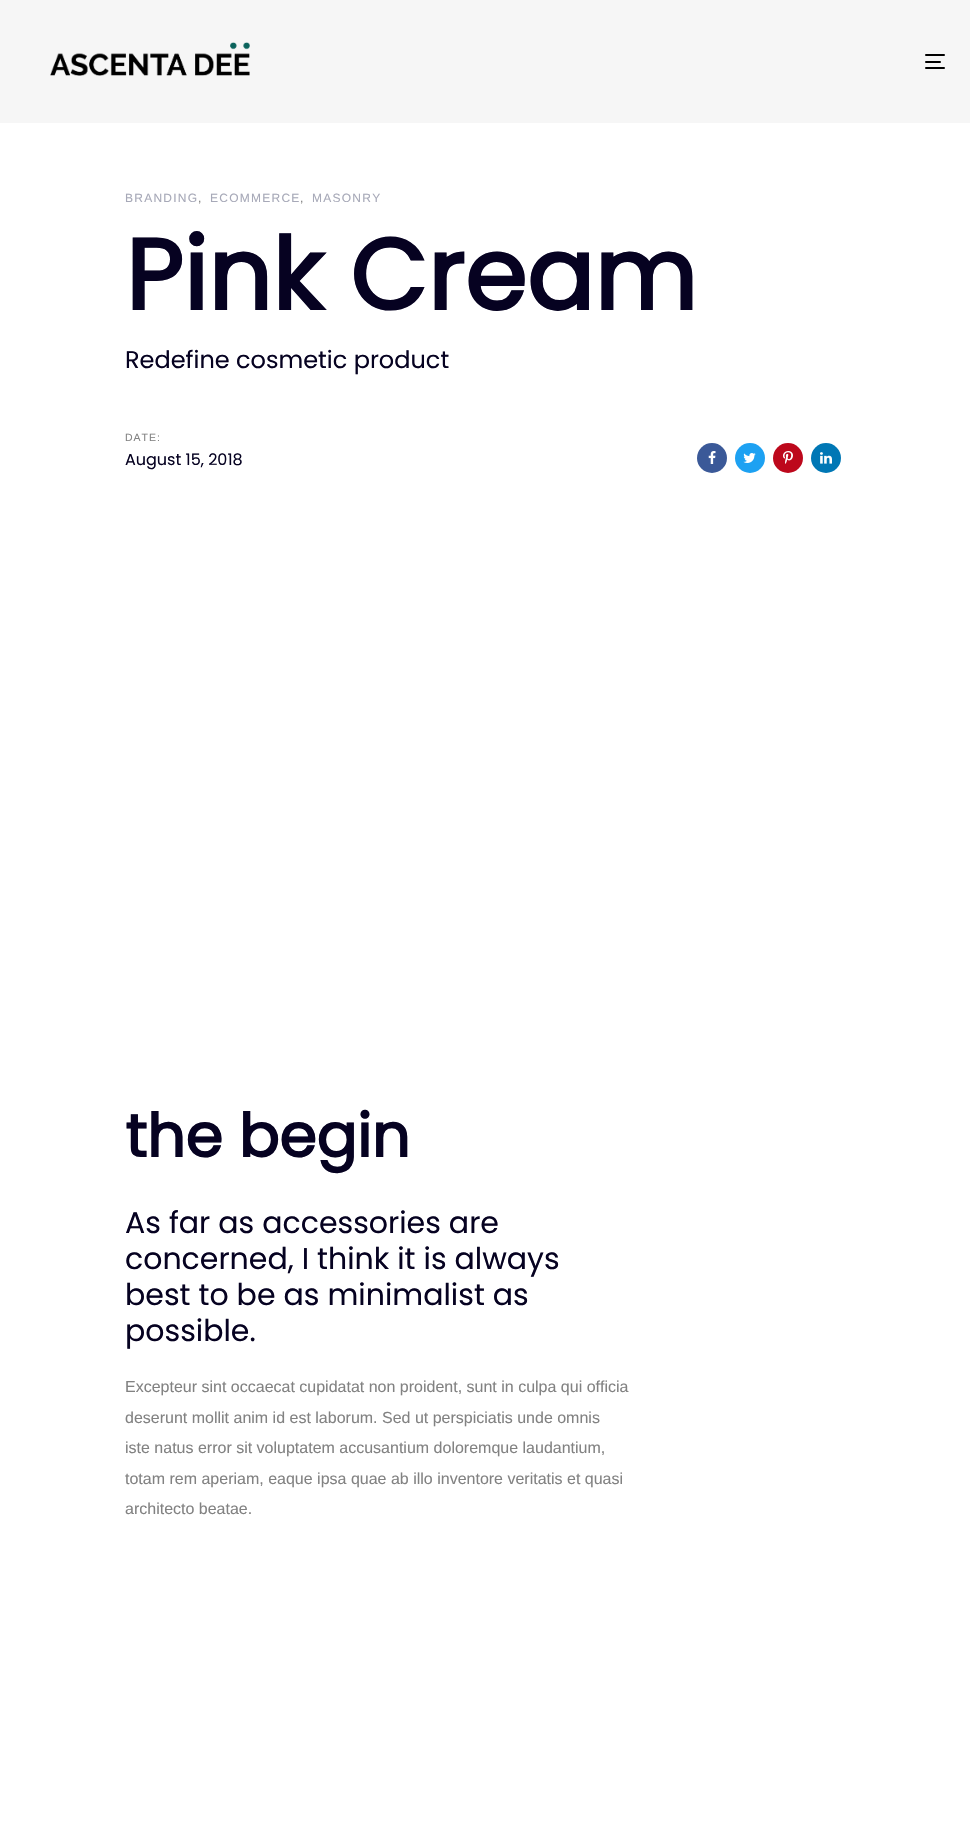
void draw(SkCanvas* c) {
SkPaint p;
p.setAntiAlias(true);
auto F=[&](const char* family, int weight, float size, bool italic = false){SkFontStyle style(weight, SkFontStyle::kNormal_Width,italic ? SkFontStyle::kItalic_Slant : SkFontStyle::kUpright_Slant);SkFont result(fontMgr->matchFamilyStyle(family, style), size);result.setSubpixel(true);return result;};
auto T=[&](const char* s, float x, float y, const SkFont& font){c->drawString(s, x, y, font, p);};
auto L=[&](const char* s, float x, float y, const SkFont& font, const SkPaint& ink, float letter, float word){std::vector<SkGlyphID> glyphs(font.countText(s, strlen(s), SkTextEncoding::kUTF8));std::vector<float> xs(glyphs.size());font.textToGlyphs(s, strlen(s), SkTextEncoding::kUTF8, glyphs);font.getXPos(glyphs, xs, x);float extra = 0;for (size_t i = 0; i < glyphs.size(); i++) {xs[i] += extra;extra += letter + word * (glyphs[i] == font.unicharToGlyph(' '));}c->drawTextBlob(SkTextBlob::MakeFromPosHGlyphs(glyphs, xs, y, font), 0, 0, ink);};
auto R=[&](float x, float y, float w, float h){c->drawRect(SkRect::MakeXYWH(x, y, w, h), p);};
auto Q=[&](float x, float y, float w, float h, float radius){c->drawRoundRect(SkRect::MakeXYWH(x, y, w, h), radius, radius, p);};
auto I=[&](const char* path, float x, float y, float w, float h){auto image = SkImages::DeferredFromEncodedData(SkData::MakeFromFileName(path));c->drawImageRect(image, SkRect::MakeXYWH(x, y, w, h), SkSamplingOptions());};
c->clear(0xffffffff);
p.setColor(0xfff6f6f6);
R(0,0,970,123);
I("1.png",50,42,200,34);
p.setColor(0xff000000);
Q(925,54,20,2,1);
Q(925,61,16,2,1);
Q(925,67,20,2,1);
auto f1 = F("Liberation Sans",400,12);
p.setColor(0xffa7a9b8);
L("BRANDING",125,202,f1,p,1.25,0);
p.setColor(0xff828282);
L(",",198,202,f1,p,1.25,0);
p.setColor(0xffa7a9b8);
L("ECOMMERCE",210,202,f1,p,1.25,0);
p.setColor(0xff828282);
L(",",300,202,f1,p,1.25,0);
p.setColor(0xffa7a9b8);
L("MASONRY",312,202,f1,p,1.25,0);
auto f2 = F("Poppins",700,100);
p.setColor(0xff060221);
T("Pink Cream",125,310,f2);
auto f3 = F("Poppins",400,24);
T("Redefine cosmetic product",125,368,f3);
auto f4 = F("Liberation Sans",400,10.5);
p.setColor(0xff828282);
L("DATE:",125,441,f4,p,1,0);
auto f5 = F("Poppins",400,16);
p.setColor(0xff060221);
T("August 15, 2018",125,465,f5);
p.setColor(0xff3b5998);
c->drawCircle(712,458,15,p);
I("2.png",708,451,8,13);
p.setColor(0xff1da1f2);
c->drawCircle(750,458,15,p);
I("3.png",743,453,13,10);
p.setColor(0xffbd081c);
c->drawCircle(788,458,15,p);
I("4.png",783,451,10,13);
p.setColor(0xff0077b5);
c->drawCircle(826,458,15,p);
I("5.png",820,452,12,12);
auto f6 = F("Poppins",700,60);
p.setColor(0xff060221);
T("the begin",125,1157,f6);
auto f7 = F("Poppins",400,30);
T("As far as accessories are",125,1233,f7);
T("concerned, I think it is always",125,1269,f7);
T("best to be as minimalist as",125,1305,f7);
T("possible.",125,1341,f7);
auto f8 = F("Liberation Sans",400,16);
p.setColor(0xff828282);
T("Excepteur sint occaecat cupidatat non proident, sunt in culpa qui officia",125,1392,f8);
T("deserunt mollit anim id est laborum. Sed ut perspiciatis unde omnis",125,1423,f8);
T("iste natus error sit voluptatem accusantium doloremque laudantium,",125,1453,f8);
T("totam rem aperiam, eaque ipsa quae ab illo inventore veritatis et quasi",125,1484,f8);
T("architecto beatae.",125,1514,f8);
}
